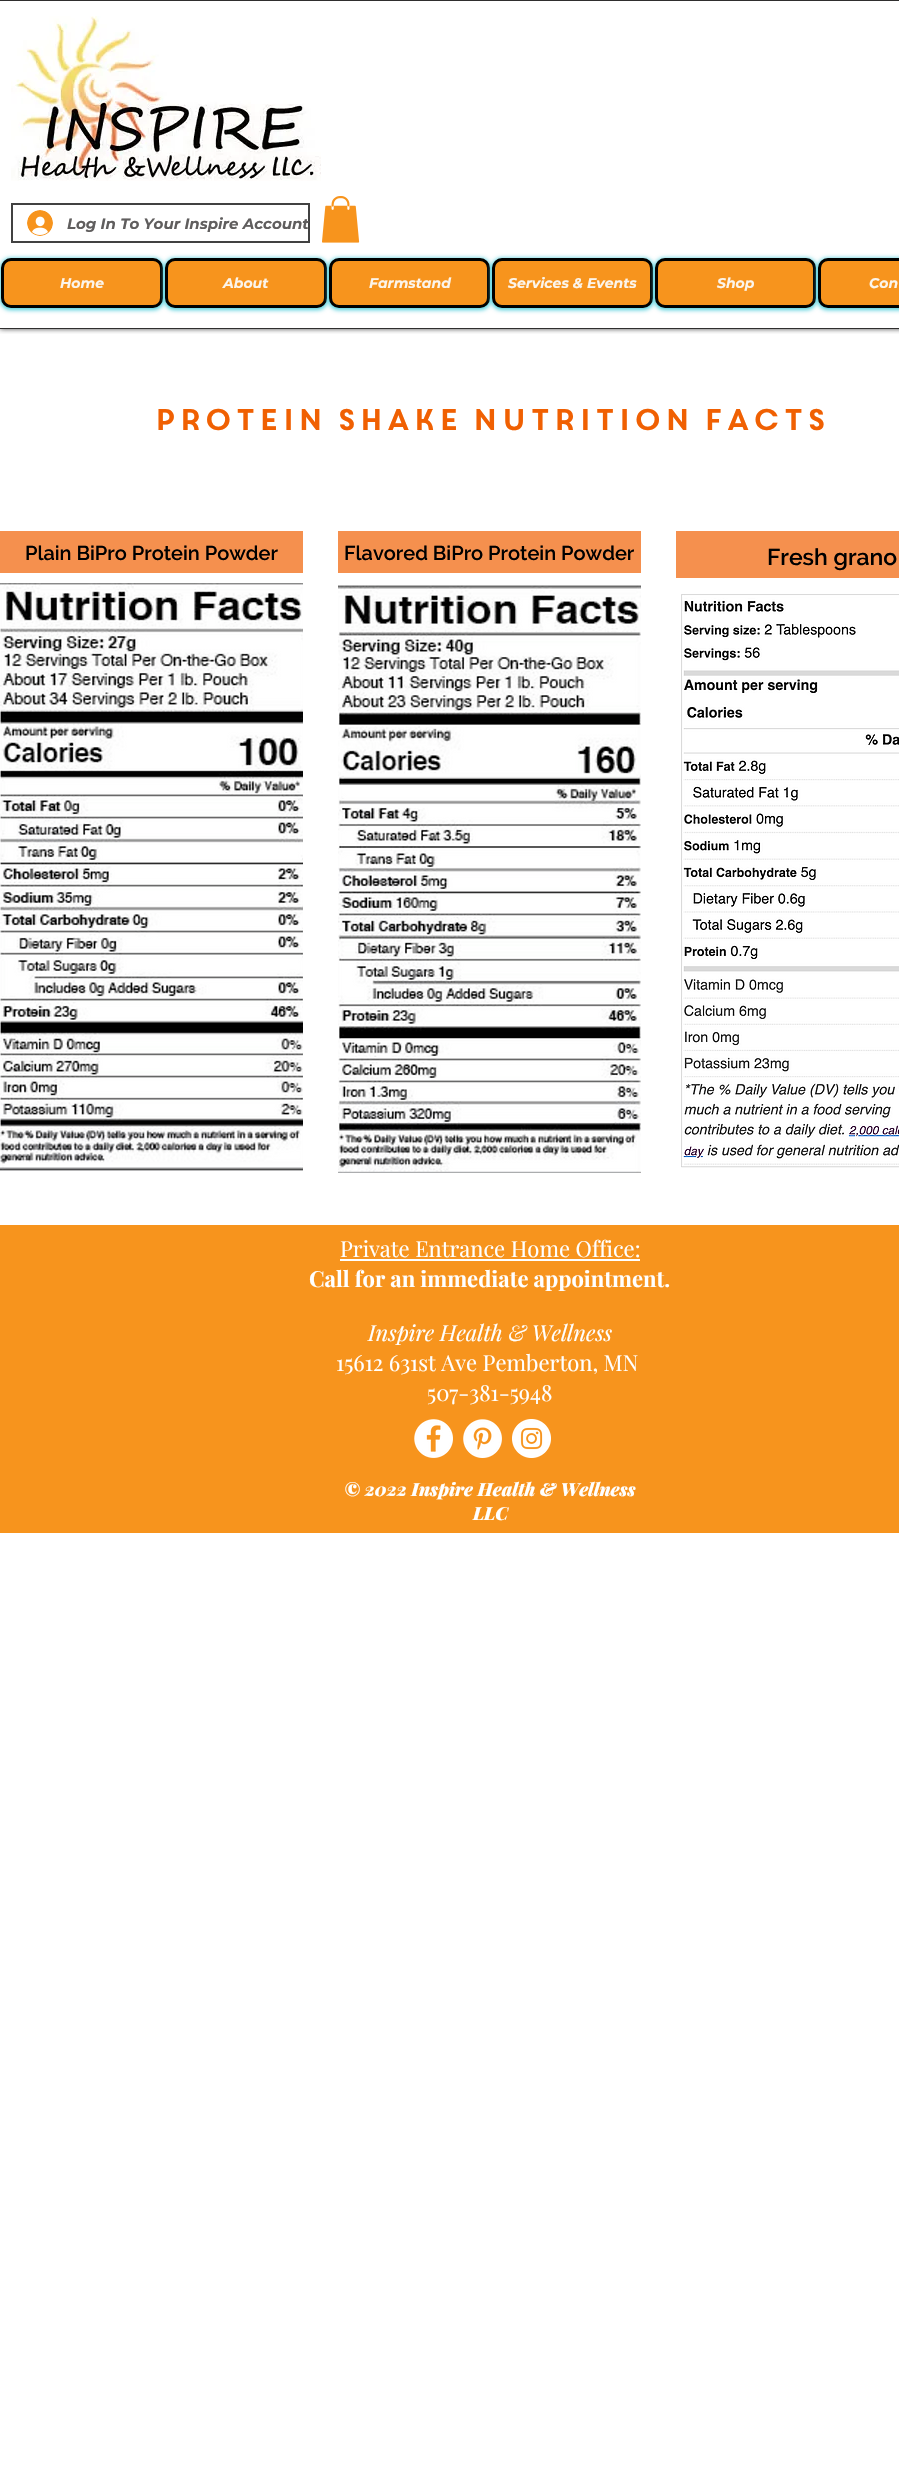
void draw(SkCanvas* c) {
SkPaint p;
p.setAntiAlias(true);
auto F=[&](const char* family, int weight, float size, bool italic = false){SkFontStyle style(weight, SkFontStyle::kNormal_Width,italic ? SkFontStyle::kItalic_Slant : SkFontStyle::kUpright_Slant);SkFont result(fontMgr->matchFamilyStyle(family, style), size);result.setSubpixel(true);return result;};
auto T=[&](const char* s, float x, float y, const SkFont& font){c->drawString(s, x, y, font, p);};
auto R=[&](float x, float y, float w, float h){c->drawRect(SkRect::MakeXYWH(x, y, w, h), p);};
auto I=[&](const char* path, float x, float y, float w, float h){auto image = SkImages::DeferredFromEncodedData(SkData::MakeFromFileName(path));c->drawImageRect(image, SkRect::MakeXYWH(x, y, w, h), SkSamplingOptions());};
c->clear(0xffffffff);
c->save();
c->clipRect(SkRect::MakeXYWH(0,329,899,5));
p.setColor(0xb3000000);
p.setMaskFilter(SkMaskFilter::MakeBlur(kNormal_SkBlurStyle, 2.5));
c->drawRect(SkRect::MakeXYWH(0,0,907,329),p);
p.setMaskFilter(nullptr);
c->restore();
p.setColor(0xff2f2e2e);
R(0,0,899,1);
R(0,328,899,1);
I("1.png",11,16,310,165);
p.setStroke(true);
p.setStrokeWidth(2);
p.setColor(0xff414141);
c->drawRect(SkRect::MakeXYWH(12,204,297,38),p);
I("2.png",27,210,26,26);
auto f1 = F("Montserrat",700,15,true);
p.setStroke(false);
p.setColor(0xff605e5e);
T("Log In To Your Inspire Account",67,229,f1);
I("3.png",322,196,38,47);
p.setColor(0xff4dcedb);
p.setMaskFilter(SkMaskFilter::MakeBlur(kNormal_SkBlurStyle, 2));
c->drawRoundRect(SkRect::MakeXYWH(0,258,164,52),11,11,p);
p.setMaskFilter(nullptr);
p.setColor(0xfff7941d);
c->drawRoundRect(SkRect::MakeXYWH(2.5,259.5,159,47),8.5,8.5,p);
p.setStroke(true);
p.setStrokeWidth(3);
p.setColor(0xff000000);
c->drawRoundRect(SkRect::MakeXYWH(2.5,259.5,159,47),8.5,8.5,p);
auto f2 = F("Montserrat",700,14,true);
p.setStroke(false);
p.setColor(0xfffcf5eb);
T("Home",60,288,f2);
p.setColor(0xff4dcedb);
p.setMaskFilter(SkMaskFilter::MakeBlur(kNormal_SkBlurStyle, 2));
c->drawRoundRect(SkRect::MakeXYWH(164,258,164,52),11,11,p);
p.setMaskFilter(nullptr);
p.setColor(0xfff7941d);
c->drawRoundRect(SkRect::MakeXYWH(166.5,259.5,159,47),8.5,8.5,p);
p.setStroke(true);
p.setColor(0xff000000);
c->drawRoundRect(SkRect::MakeXYWH(166.5,259.5,159,47),8.5,8.5,p);
p.setStroke(false);
p.setColor(0xfffcf5eb);
T("About",223,288,f2);
p.setColor(0xff4dcedb);
p.setMaskFilter(SkMaskFilter::MakeBlur(kNormal_SkBlurStyle, 2));
c->drawRoundRect(SkRect::MakeXYWH(328,258,163,52),11,11,p);
p.setMaskFilter(nullptr);
p.setColor(0xfff7941d);
c->drawRoundRect(SkRect::MakeXYWH(330.5,259.5,158,47),8.5,8.5,p);
p.setStroke(true);
p.setColor(0xff000000);
c->drawRoundRect(SkRect::MakeXYWH(330.5,259.5,158,47),8.5,8.5,p);
p.setStroke(false);
p.setColor(0xfffcf5eb);
T("Farmstand",369,288,f2);
p.setColor(0xff4dcedb);
p.setMaskFilter(SkMaskFilter::MakeBlur(kNormal_SkBlurStyle, 2));
c->drawRoundRect(SkRect::MakeXYWH(491,258,163,52),11,11,p);
p.setMaskFilter(nullptr);
p.setColor(0xfff7941d);
c->drawRoundRect(SkRect::MakeXYWH(493.5,259.5,158,47),8.5,8.5,p);
p.setStroke(true);
p.setColor(0xff000000);
c->drawRoundRect(SkRect::MakeXYWH(493.5,259.5,158,47),8.5,8.5,p);
p.setStroke(false);
p.setColor(0xfffcf5eb);
T("Services & Events",508,288,f2);
p.setColor(0xff4dcedb);
p.setMaskFilter(SkMaskFilter::MakeBlur(kNormal_SkBlurStyle, 2));
c->drawRoundRect(SkRect::MakeXYWH(654,258,163,52),11,11,p);
p.setMaskFilter(nullptr);
p.setColor(0xfff7941d);
c->drawRoundRect(SkRect::MakeXYWH(656.5,259.5,158,47),8.5,8.5,p);
p.setStroke(true);
p.setColor(0xff000000);
c->drawRoundRect(SkRect::MakeXYWH(656.5,259.5,158,47),8.5,8.5,p);
p.setStroke(false);
p.setColor(0xfffcf5eb);
T("Shop",717,288,f2);
p.setColor(0xff4dcedb);
p.setMaskFilter(SkMaskFilter::MakeBlur(kNormal_SkBlurStyle, 2));
c->drawRoundRect(SkRect::MakeXYWH(817,258,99,52),11,11,p);
p.setMaskFilter(nullptr);
p.setColor(0xfff7941d);
c->drawRoundRect(SkRect::MakeXYWH(819.5,259.5,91,47),8.5,8.5,p);
p.setStroke(true);
p.setColor(0xff000000);
c->drawRoundRect(SkRect::MakeXYWH(819.5,259.5,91,47),8.5,8.5,p);
p.setStroke(false);
p.setColor(0xfffcf5eb);
T("Con",869,288,f2);
auto f3 = F("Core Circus",400,30);
p.setColor(0xfff06002);
T("protein shake nutrition facts",153,430,f3);
p.setColor(0xfff5904e);
R(0,531,303,42);
auto f4 = F("Raleway",600,20);
p.setColor(0xff000000);
T("Plain BiPro Protein Powder",25,560,f4);
I("4.png",0,583,303,588);
p.setColor(0xfff5904e);
R(338,531,303,42);
R(676,531,223,47);
p.setColor(0xff000000);
T("Flavored BiPro Protein Powder",344,560,f4);
auto f5 = F("Raleway",600,23);
T("Fresh grano",767,565,f5);
I("5.png",338,585,303,588);
I("6.png",681,594,218,574);
p.setColor(0xfff7941d);
R(0,1225,899,308);
auto f6 = F("Playfair Display",400,22);
p.setColor(0xffffffff);
T("Private Entrance Home Office:",340,1257,f6);
R(340,1259,300,2);
auto f7 = F("Playfair Display",700,22);
T("Call for an immediate appointment.",309,1287,f7);
auto f8 = F("Playfair Display",400,22,true);
T("Inspire Health & Wellness",368,1341,f8);
T("15612 631st Ave Pemberton, MN",336,1371,f6);
T("507-381-5948",427,1401,f6);
I("7.png",414,1419,39,39);
I("8.png",463,1419,39,39);
I("9.png",512,1419,39,39);
auto f9 = F("Playfair Display",900,18,true);
T("© 2022 Inspire Health & Wellness",344,1496,f9);
T("LLC",473,1520,f9);
}
